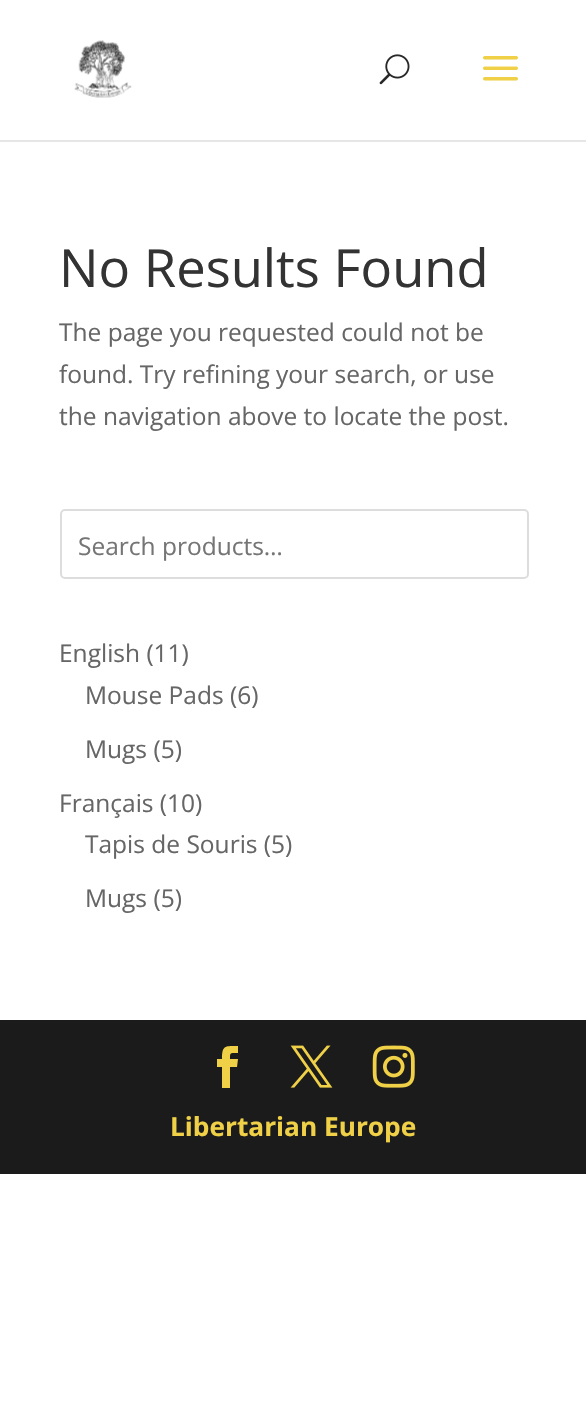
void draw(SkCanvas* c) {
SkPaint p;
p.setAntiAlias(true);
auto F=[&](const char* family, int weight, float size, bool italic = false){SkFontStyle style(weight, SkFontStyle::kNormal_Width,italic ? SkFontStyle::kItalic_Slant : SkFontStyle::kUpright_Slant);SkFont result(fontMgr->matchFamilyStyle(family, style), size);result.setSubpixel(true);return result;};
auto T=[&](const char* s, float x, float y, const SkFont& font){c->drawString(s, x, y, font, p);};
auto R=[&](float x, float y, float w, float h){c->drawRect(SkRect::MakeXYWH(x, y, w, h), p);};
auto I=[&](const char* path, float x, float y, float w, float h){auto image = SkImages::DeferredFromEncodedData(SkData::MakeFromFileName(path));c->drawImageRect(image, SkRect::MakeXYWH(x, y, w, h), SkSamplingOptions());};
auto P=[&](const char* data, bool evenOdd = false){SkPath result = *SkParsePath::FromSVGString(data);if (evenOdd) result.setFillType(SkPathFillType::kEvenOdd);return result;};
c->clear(0xffffffff);
p.setColor(0xffe6e6e6);
R(0,140,586,2);
I("1.png",74,40,58,58);
I("2.png",379,54,31,31);
I("3.png",483,56,35,25);
auto f1 = F("Open Sans",400,52.5);
p.setColor(0xff333333);
T("No Results Found",59,287,f1);
auto f2 = F("Open Sans",400,24.5);
p.setColor(0xff666666);
T("The page you requested could not be",59,341,f2);
T("found. Try refining your search, or use",59,383,f2);
T("the navigation above to locate the post.",59,425,f2);
p.setStroke(true);
p.setStrokeWidth(2);
p.setColor(0xffdddddd);
c->drawRoundRect(SkRect::MakeXYWH(61,510,467,68),4,4,p);
p.setStroke(false);
p.setColor(0xff757575);
T("Search products…",78,555,f2);
p.setColor(0xff666666);
T("English (11)",59,662,f2);
T("Mouse Pads (6)",85,704,f2);
T("Mugs (5)",85,758,f2);
T("Français (10)",59,812,f2);
T("Tapis de Souris (5)",85,853,f2);
T("Mugs (5)",85,907,f2);
p.setColor(0xff1b1b1b);
R(0,1020,586,154);
p.setColor(0xffefd047);
c->drawPath(P("M222 1088h8v-21h7l1-8h-8c0-7 0-6 8-6v-7c-13 0-16-1-16 13h-5v8h5z"),p);
I("4.png",290,1045,43,43);
I("5.png",372,1045,43,43);
auto f3 = F("Open Sans",700,26.25);
T("Libertarian Europe",170,1136,f3);
}
